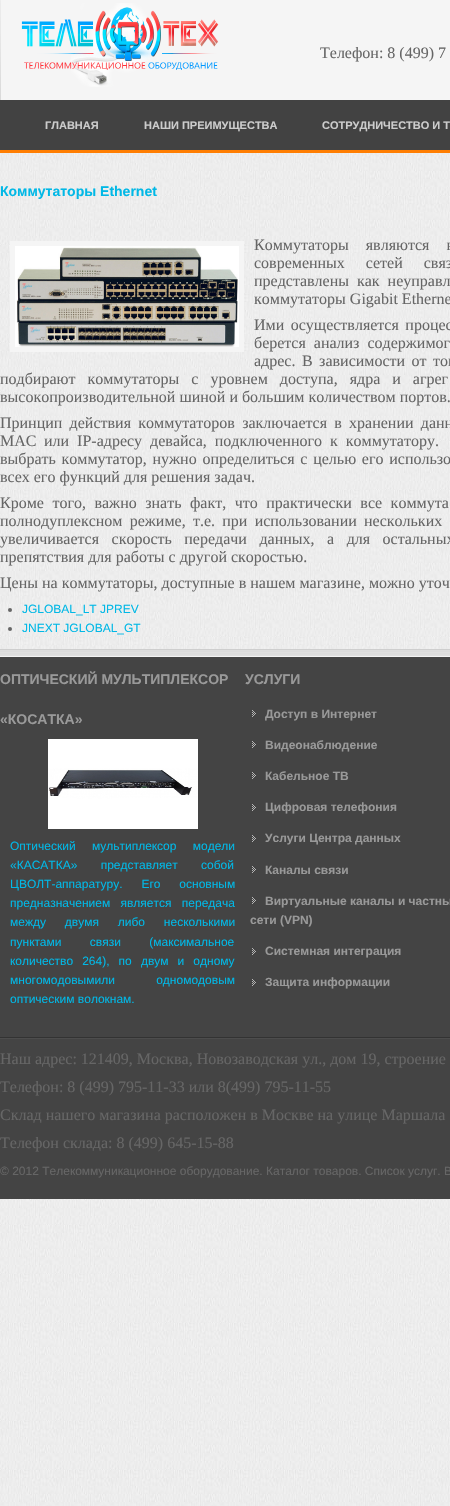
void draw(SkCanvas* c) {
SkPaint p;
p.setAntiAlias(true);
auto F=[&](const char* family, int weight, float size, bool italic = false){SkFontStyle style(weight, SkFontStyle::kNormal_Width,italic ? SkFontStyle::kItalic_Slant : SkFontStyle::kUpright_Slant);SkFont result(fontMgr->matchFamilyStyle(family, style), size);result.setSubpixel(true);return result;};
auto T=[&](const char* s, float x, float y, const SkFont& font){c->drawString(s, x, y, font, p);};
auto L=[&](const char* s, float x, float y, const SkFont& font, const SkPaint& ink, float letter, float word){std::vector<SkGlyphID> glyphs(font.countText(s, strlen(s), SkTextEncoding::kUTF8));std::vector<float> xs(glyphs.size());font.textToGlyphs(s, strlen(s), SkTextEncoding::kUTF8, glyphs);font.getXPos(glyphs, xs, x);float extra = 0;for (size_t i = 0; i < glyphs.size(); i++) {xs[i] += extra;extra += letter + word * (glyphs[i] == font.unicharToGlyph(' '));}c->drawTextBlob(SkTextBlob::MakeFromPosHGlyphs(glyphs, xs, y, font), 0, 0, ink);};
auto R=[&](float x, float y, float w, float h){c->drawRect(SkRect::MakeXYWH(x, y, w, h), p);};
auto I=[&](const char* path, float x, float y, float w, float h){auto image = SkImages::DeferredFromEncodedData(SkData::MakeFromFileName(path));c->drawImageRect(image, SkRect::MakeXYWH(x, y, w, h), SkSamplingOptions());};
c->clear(0xffffffff);
I("1.png",0,153,450,1353);
p.setColor(0xfff5f5f5);
R(0,0,450,100);
I("2.png",0,0,1,100);
I("3.png",21,3,198,84);
auto f1 = F("Liberation Serif",400,16);
p.setColor(0xff666666);
T("Телефон: 8 (499) 7",320,58,f1);
p.setColor(0xff424242);
R(0,100,450,50);
p.setColor(0xffff7e02);
R(0,150,450,3);
auto f2 = F("Liberation Sans",700,11);
p.setColor(0xffcccccc);
T("ГЛАВНАЯ",45,129,f2);
T("НАШИ ПРЕИМУЩЕСТВА",144,129,f2);
T("СОТРУДНИЧЕСТВО И Т",322,129,f2);
auto f3 = F("Liberation Sans",700,14);
p.setColor(0xff01b8e6);
T("Коммутаторы Ethernet",0,196,f3);
p.setColor(0xfff5f5f5);
R(10,241,234,111);
I("4.png",15,246,224,101);
p.setColor(0xff666666);
L("Коммутаторы являются в",254,250,f1,p,0,13);
L("современных сетей связ",254,268,f1,p,0,17);
L("представлены как неуправл",254,286,f1,p,0,4);
T("коммутаторы Gigabit Etherne",254,304,f1);
L("Ими осуществляется процес",254,330,f1,p,0,2.5);
L("берется анализ содержимог",254,348,f1,p,0,4);
L("адрес. В зависимости от тог",254,366,f1,p,0,2.5);
L("подбирают коммутаторы с уровнем доступа, ядра и агрег",0,384,f1,p,0,8);
T("высокопроизводительной шиной и большим количеством портов.",0,402,f1);
L("Принцип действия коммутаторов заключается в хранении данн",0,428,f1,p,0,3.25);
T("MAC",0,446,f1);
L("или IP-адресу девайса, подключенного к коммутатору.",44,446,f1,p,0,4);
L("выбрать коммутатор, нужно определиться с целью его использо",0,464,f1,p,0,1.75);
T("всех его функций для решения задач.",0,482,f1);
L("Кроме того, важно знать факт, что практически все коммута",0,508,f1,p,0,4.5);
L("полнодуплексном режиме, т.е. при использовании нескольких",0,526,f1,p,0,3.25);
L("увеличивается скорость передачи данных, а для остальных",0,544,f1,p,0,8.5);
T("препятствия для работы с другой скоростью.",0,562,f1);
T("Цены на коммутаторы, доступные в нашем магазине, можно уточ",0,588,f1);
c->drawCircle(10,610,2,p);
auto f4 = F("Liberation Sans",400,12);
p.setColor(0xff01b8e6);
T("JGLOBAL_LT JPREV",22,613,f4);
p.setColor(0xff666666);
c->drawCircle(10,629,2,p);
p.setColor(0xff01b8e6);
T("JNEXT JGLOBAL_GT",22,632,f4);
p.setColor(0xff444444);
R(0,657,450,380);
I("5.png",0,649,450,8);
p.setColor(0xff333333);
R(0,1037,450,1);
p.setColor(0xff999999);
T("ОПТИЧЕСКИЙ МУЛЬТИПЛЕКСОР",0,684,f3);
T("«КОСАТКА»",0,724,f3);
I("6.png",48,739,150,90);
p.setColor(0xff01b8e6);
L("Оптический мультиплексор модели",10,850,f4,p,0,13);
L("«КАСАТКА» представляет собой",10,869,f4,p,0,20);
L("ЦВОЛТ-аппаратуру. Его основным",10,888,f4,p,0,15.5);
L("предназначением является передача",10,907,f4,p,0,7);
L("между двумя либо несколькими",10,926,f4,p,0,15.5);
L("пунктами связи (максимальное",10,946,f4,p,0,25);
L("количество 264), по двум и одному",10,965,f4,p,0,5.75);
L("многомодовымили одномодовым",10,984,f4,p,0,38);
T("оптическим волокнам.",10,1003,f4);
p.setColor(0xff999999);
T("УСЛУГИ",245,684,f3);
I("7.png",252,710,4,7);
auto f5 = F("Liberation Sans",700,12);
T("Доступ в Интернет",265,718,f5);
I("7.png",252,741,4,7);
T("Видеонаблюдение",265,749,f5);
I("7.png",252,772,4,7);
T("Кабельное ТВ",265,780,f5);
I("7.png",252,804,4,7);
T("Цифровая телефония",265,811,f5);
I("7.png",252,835,4,7);
T("Услуги Центра данных",265,842,f5);
I("7.png",252,866,4,7);
T("Каналы связи",265,874,f5);
I("7.png",252,897,4,7);
T("Виртуальные каналы и частны",265,905,f5);
T("сети (VPN)",250,924,f5);
I("7.png",252,948,4,7);
T("Системная интеграция",265,955,f5);
I("7.png",252,979,4,7);
T("Защита информации",265,986,f5);
p.setColor(0xff444444);
R(0,1039,450,160);
p.setColor(0xff4d4d4d);
R(0,1038,450,1);
p.setColor(0xff666666);
T("Наш адрес: 121409, Москва, Новозаводская ул., дом 19, строение",0,1064,f1);
T("Телефон: 8 (499) 795-11-33 или 8(499) 795-11-55",0,1092,f1);
T("Склад нашего магазина расположен в Москве на улице Маршала",0,1120,f1);
T("Телефон склада: 8 (499) 645-15-88",0,1148,f1);
T("© 2012 Телекоммуникационное оборудование. Каталог товаров. Список услуг. В",0,1175,f4);
}
